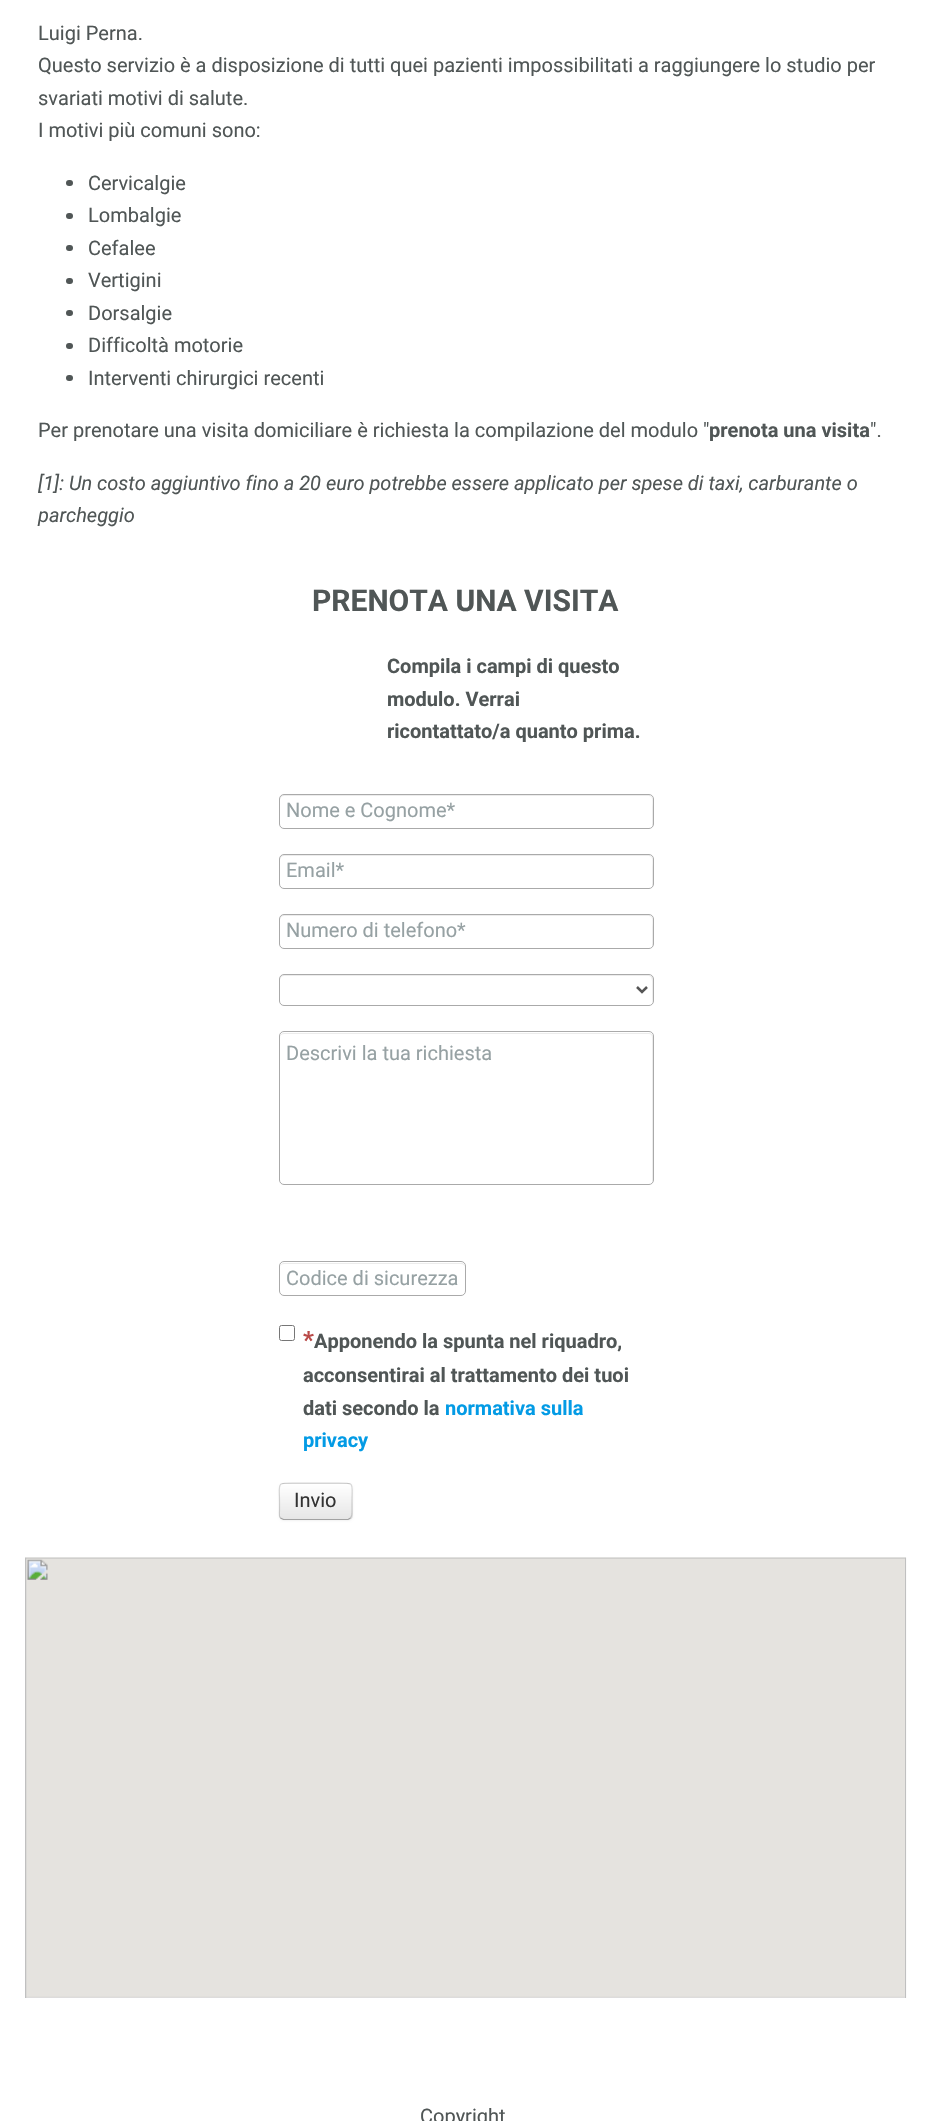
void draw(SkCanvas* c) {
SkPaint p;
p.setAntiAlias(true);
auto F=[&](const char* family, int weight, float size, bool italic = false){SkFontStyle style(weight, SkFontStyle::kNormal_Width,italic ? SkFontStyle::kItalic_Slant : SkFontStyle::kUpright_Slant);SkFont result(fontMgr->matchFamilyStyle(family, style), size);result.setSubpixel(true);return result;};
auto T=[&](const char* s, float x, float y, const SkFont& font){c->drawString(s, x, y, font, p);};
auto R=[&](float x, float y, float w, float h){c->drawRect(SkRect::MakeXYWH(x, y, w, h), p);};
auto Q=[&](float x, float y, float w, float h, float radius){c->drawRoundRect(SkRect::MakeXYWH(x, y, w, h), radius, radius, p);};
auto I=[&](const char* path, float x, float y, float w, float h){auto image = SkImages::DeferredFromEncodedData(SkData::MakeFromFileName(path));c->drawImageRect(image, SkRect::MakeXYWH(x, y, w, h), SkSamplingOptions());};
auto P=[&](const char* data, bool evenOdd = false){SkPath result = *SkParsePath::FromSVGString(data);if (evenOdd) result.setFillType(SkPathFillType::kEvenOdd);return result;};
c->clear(0xffffffff);
auto f1 = F("Roboto",400,20);
p.setColor(0xff505656);
T("Luigi Perna.",38,40,f1);
T("Questo servizio è a disposizione di tutti quei pazienti impossibilitati a raggiungere lo studio per",38,72,f1);
T("svariati motivi di salute.",38,105,f1);
T("I motivi più comuni sono:",38,137,f1);
Q(66,180,7,6,3);
T("Cervicalgie",88,190,f1);
Q(66,213,7,6,3);
T("Lombalgie",88,222,f1);
Q(66,245,7,6,3);
T("Cefalee",88,255,f1);
Q(66,278,7,6,3);
T("Vertigini",88,287,f1);
Q(66,310,7,6,3);
T("Dorsalgie",88,320,f1);
Q(66,343,7,6,3);
T("Difficoltà motorie",88,352,f1);
Q(66,375,7,6,3);
T("Interventi chirurgici recenti",88,385,f1);
T("Per prenotare una visita domiciliare è richiesta la compilazione del modulo \"",38,437,f1);
auto f2 = F("Roboto",700,20);
T("prenota una visita",709,437,f2);
T("\".",870,437,f1);
auto f3 = F("Roboto",400,20,true);
T("[1]: Un costo aggiuntivo fino a 20 euro potrebbe essere applicato per spese di taxi, carburante o",38,490,f3);
T("parcheggio",38,522,f3);
auto f4 = F("Roboto",700,30);
T("PRENOTA UNA VISITA",312,611,f4);
T("Compila i campi di questo",387,673,f2);
T("modulo. Verrai",387,706,f2);
T("ricontattato/a quanto prima.",387,738,f2);
p.setColor(0xffececec);
c->drawPath(P("M284 796h365c5 0 3 10 3 12v19l1-2c1-3 1-26-1-28l-2-2h-366c-3 0-4 2-4 5c0-2 2-4 4-4z"),p);
p.setStroke(true);
p.setStrokeWidth(1);
p.setColor(0xffaaaaaa);
c->drawRoundRect(SkRect::MakeXYWH(279.5,794.5,374,34),4.5,4.5,p);
p.setStroke(false);
p.setColor(0xff96a1a3);
T("Nome e Cognome*",286,817,f1);
p.setColor(0xffececec);
c->drawPath(P("M284 856h365c5 0 3 10 3 12v19l1-2c1-3 1-26-1-28l-2-2h-366c-3 0-4 2-4 5c0-2 2-4 4-4z"),p);
p.setStroke(true);
p.setColor(0xffaaaaaa);
c->drawRoundRect(SkRect::MakeXYWH(279.5,854.5,374,34),4.5,4.5,p);
p.setStroke(false);
p.setColor(0xff96a1a3);
T("Email*",286,877,f1);
p.setColor(0xffececec);
c->drawPath(P("M284 916h365c5 0 3 10 3 12v19l1-2c1-3 1-26-1-28l-2-2h-366c-3 0-4 2-4 5c0-2 2-4 4-4z"),p);
p.setStroke(true);
p.setColor(0xffaaaaaa);
c->drawRoundRect(SkRect::MakeXYWH(279.5,914.5,374,34),4.5,4.5,p);
p.setStroke(false);
p.setColor(0xff96a1a3);
T("Numero di telefono*",286,937,f1);
p.setColor(0xffececec);
c->drawPath(P("M284 976h365c4 0 3 9 3 11v17c2-2 1-25 1-27l-1-1l-3-1h-365c-3 0-4 2-4 5c0-2 2-4 4-4z"),p);
p.setStroke(true);
p.setColor(0xffaaaaaa);
c->drawRoundRect(SkRect::MakeXYWH(279.5,974.5,374,31),4.5,4.5,p);
p.setStrokeWidth(2.5);
p.setColor(0xff555555);
c->drawPath(P("M637 987l5 5l5-5"),p);
p.setStroke(false);
p.setColor(0xffececec);
c->drawPath(P("M284 1034h365c2 0 3 1 3 4v143v2c0-1 1-2 1-3v-143c0-2-2-4-4-4h-365c-2 0-4 2-4 4v1c0-3 2-4 4-4z"),p);
p.setStroke(true);
p.setStrokeWidth(1);
p.setColor(0xffaaaaaa);
c->drawRoundRect(SkRect::MakeXYWH(279.5,1031.5,374,153),4.5,4.5,p);
p.setStroke(false);
p.setColor(0xff96a1a3);
T("Descrivi la tua richiesta",286,1060,f1);
p.setColor(0xffececec);
c->drawPath(P("M284 1264h177c2 0 4 1 4 4c0-3-1-5-4-5h-178c-2 1-3 3-3 5c0-3 2-4 4-4z"),p);
p.setStroke(true);
p.setColor(0xffaaaaaa);
c->drawRoundRect(SkRect::MakeXYWH(279.5,1261.5,186,34),4.5,4.5,p);
p.setStroke(false);
p.setColor(0xff96a1a3);
T("Codice di sicurezza",286,1285,f1);
p.setStroke(true);
p.setColor(0xff767676);
c->drawRoundRect(SkRect::MakeXYWH(279.5,1325.5,15,15),2,2,p);
auto f5 = F("Roboto",700,24);
p.setStroke(false);
p.setColor(0xffb94a48);
T("*",303,1348,f5);
p.setColor(0xff505656);
T("Apponendo la spunta nel riquadro,",314,1348,f2);
T("acconsentirai al trattamento dei tuoi",303,1382,f2);
T("dati secondo la",303,1415,f2);
p.setColor(0xff039be5);
T("normativa sulla",445,1415,f2);
T("privacy",303,1447,f2);
p.setColor(0x0d000000);
p.setMaskFilter(SkMaskFilter::MakeBlur(kNormal_SkBlurStyle, 1));
c->drawRoundRect(SkRect::MakeXYWH(279,1484,74,37),5,5,p);
p.setMaskFilter(nullptr);
p.setColor(0xffe6e6e6);
Q(279,1483,74,37,5);
c->save();
c->clipPath(P("M284 1483h64c3 0 5 2 5 5v27c0 3-2 5-5 5h-64c-3 0-5-2-5-5v-27c0-3 2-5 5-5z"),true);
{
const SkColor colors[] = {0xffffffff,0xffe6e6e6};
const float stops[] = {0,1};
const SkPoint ends[] = {{316,1484}, {316,1519}};
p.setShader(SkGradientShader::MakeLinear(ends, colors, stops, 2, SkTileMode::kClamp));
p.setAlpha(255);
}
R(279,1484,74,35);
c->restore();
p.setShader(nullptr);
p.setColor(0x33ffffff);
c->drawPath(P("M284 1485h64c2 0 3 2 3 4c0-8-9-5-15-5h-42c-5 0-14-3-14 5c0-2 2-4 4-4z"),p);
p.setStroke(true);
p.setStrokeWidth(1.2);
p.setColor(0xffa2a2a2);
c->drawPath(P("M350.5 1518l-2.5 1.5h-64.5l-3-1.5"),p);
p.setColor(0x26000000);
c->drawPath(P("M280.5 1518c-2-2-1-5-1-7.5v-9.5c0-18.5-3.5-18 15-18h42.5c18.5 0 15-.5 15 18v9.5c0 2.5 .5 5.5-1.5 7.5"),p);
p.setStroke(false);
p.setColor(0xff333333);
T("Invio",294,1507,f1);
I("1.png",25,1557,882,441);
p.setColor(0xff505656);
T("Copyright",420,2123,f1);
}
